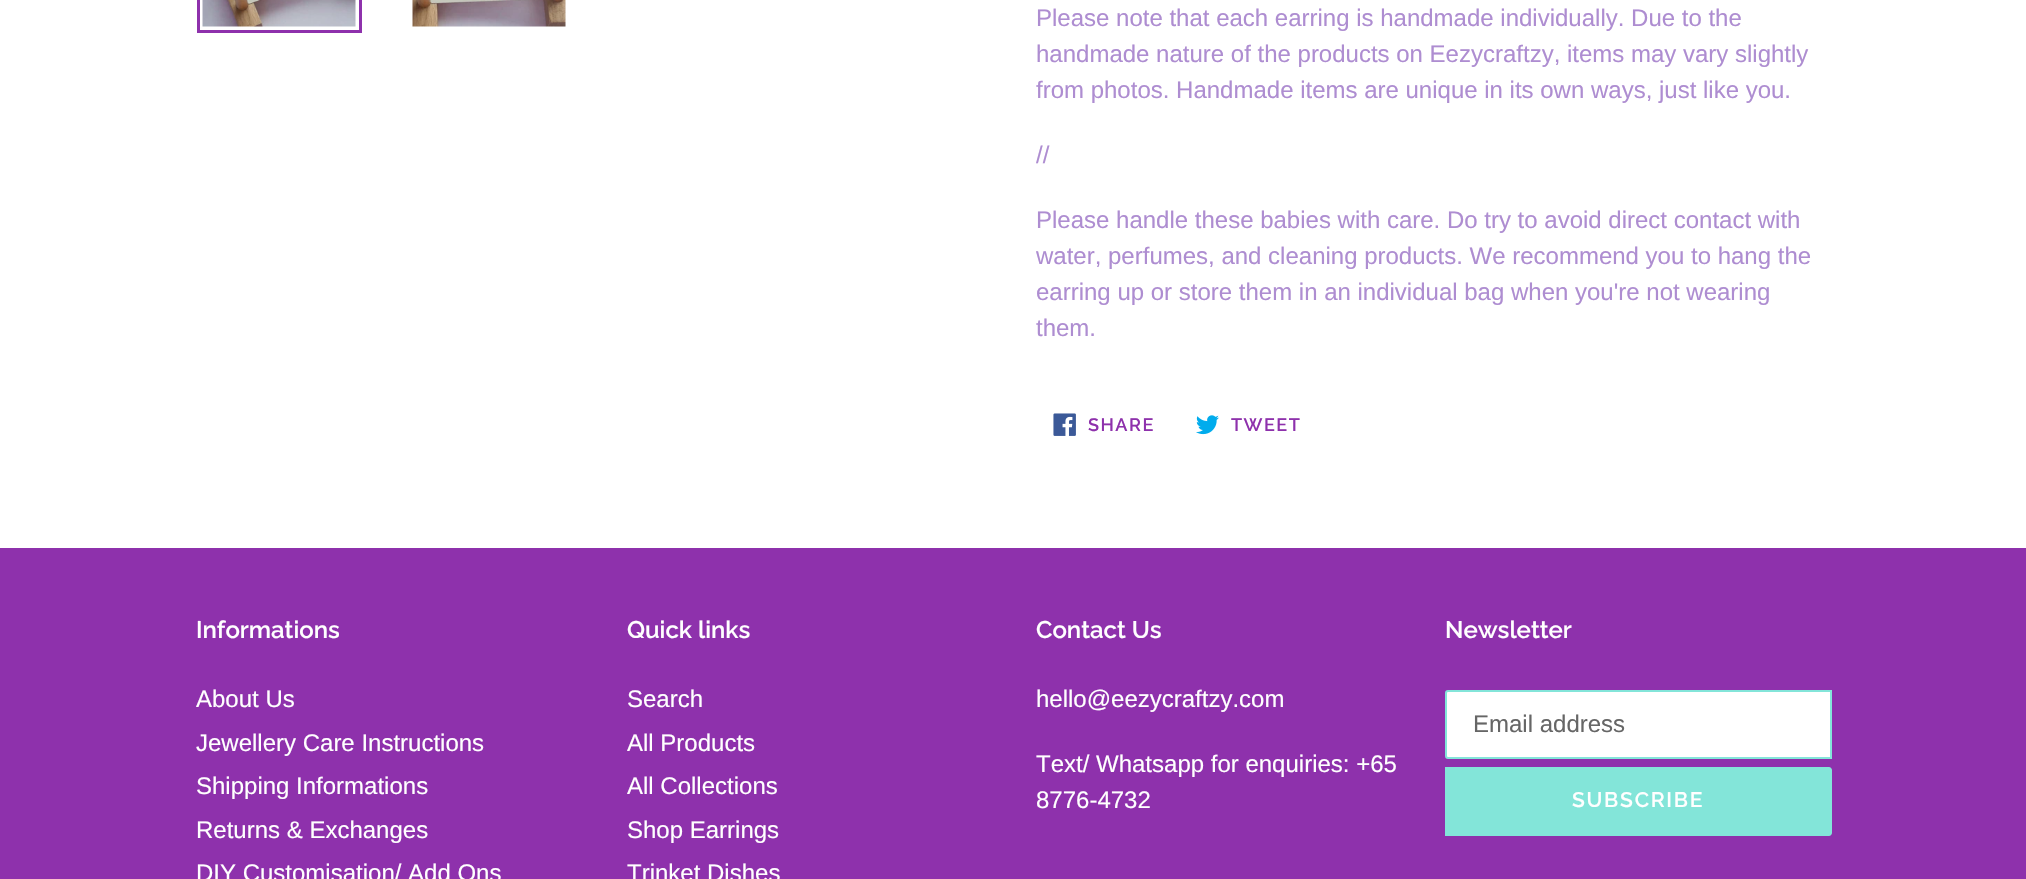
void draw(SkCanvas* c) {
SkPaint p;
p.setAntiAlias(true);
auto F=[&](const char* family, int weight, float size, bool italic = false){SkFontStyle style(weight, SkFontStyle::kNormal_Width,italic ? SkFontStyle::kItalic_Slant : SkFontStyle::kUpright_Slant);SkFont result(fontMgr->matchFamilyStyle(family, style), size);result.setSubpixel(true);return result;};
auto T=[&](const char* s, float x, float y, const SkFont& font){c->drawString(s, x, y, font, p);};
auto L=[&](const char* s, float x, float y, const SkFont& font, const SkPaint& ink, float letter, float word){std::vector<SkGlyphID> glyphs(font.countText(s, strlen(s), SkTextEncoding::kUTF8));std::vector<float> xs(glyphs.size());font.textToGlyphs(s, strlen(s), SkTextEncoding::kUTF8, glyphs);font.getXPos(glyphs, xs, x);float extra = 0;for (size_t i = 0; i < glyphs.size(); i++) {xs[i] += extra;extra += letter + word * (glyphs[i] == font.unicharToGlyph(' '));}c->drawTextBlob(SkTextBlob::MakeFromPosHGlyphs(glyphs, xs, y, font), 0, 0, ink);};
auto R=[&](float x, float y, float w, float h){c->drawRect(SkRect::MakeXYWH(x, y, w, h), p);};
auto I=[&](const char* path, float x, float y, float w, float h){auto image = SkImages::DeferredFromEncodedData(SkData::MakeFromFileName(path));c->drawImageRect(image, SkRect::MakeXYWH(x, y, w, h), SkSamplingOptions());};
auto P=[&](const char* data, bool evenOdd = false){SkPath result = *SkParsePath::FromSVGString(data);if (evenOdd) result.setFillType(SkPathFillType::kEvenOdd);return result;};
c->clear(0xffffffff);
p.setStroke(true);
p.setStrokeWidth(3);
p.setColor(0xff8e31ac);
c->drawRect(SkRect::MakeXYWH(198.5,-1.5,162,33),p);
I("1.png",202,0,154,27);
I("2.png",412,0,154,27);
auto f1 = F("Liberation Sans",400,24);
p.setStroke(false);
p.setColor(0xffae8dd1);
T("Please note that each earring is handmade individually. Due to the",1036,26,f1);
T("handmade nature of the products on Eezycraftzy, items may vary slightly",1036,62,f1);
T("from photos. Handmade items are unique in its own ways, just like you.",1036,98,f1);
T("//",1036,163,f1);
T("Please handle these babies with care. Do try to avoid direct contact with",1036,228,f1);
T("water, perfumes, and cleaning products. We recommend you to hang the",1036,264,f1);
T("earring up or store them in an individual bag when you're not wearing",1036,300,f1);
T("them.",1036,336,f1);
I("3.png",1053,413,23,23);
auto f2 = F("Raleway",600,18);
p.setColor(0xff8e31ac);
L("SHARE",1088,431,f2,p,1.5,0);
I("4.png",1196,415,23,20);
L("TWEET",1231,431,f2,p,1.5,0);
R(0,548,2026,331);
auto f3 = F("Raleway",600,24);
p.setColor(0xffffffff);
T("Informations",196,638,f3);
T("About Us",196,707,f1);
T("Jewellery Care Instructions",196,751,f1);
T("Shipping Informations",196,794,f1);
T("Returns & Exchanges",196,838,f1);
T("DIY Customisation/ Add Ons",196,881,f1);
T("Quick links",627,638,f3);
T("Search",627,707,f1);
T("All Products",627,751,f1);
T("All Collections",627,794,f1);
T("Shop Earrings",627,838,f1);
T("Trinket Dishes",627,881,f1);
T("Contact Us",1036,638,f3);
T("hello@eezycraftzy.com",1036,707,f1);
T("Text/ Whatsapp for enquiries: +65",1036,772,f1);
T("8776-4732",1036,808,f1);
T("Newsletter",1445,638,f3);
c->drawPath(P("M1448 691h383v67h-383c-1 0-2-1-2-2v-63c0-1 1-2 2-2z"),p);
p.setStroke(true);
p.setStrokeWidth(2);
p.setColor(0xff83e5d9);
c->drawPath(P("M1448 691h383v67h-383c-1 0-2-1-2-2v-63c0-1 1-2 2-2z"),p);
p.setStroke(false);
p.setColor(0xff666666);
T("Email address",1473,732,f1);
p.setColor(0xff83e5d9);
c->drawPath(P("M1445 767h384c1.5 0 3 1.5 3 3v63c0 1.5-1.5 3-3 3h-384z"),p);
auto f4 = F("Raleway",600,21);
p.setColor(0xffffffff);
L("SUBSCRIBE",1572,807,f4,p,1.75,0);
}
